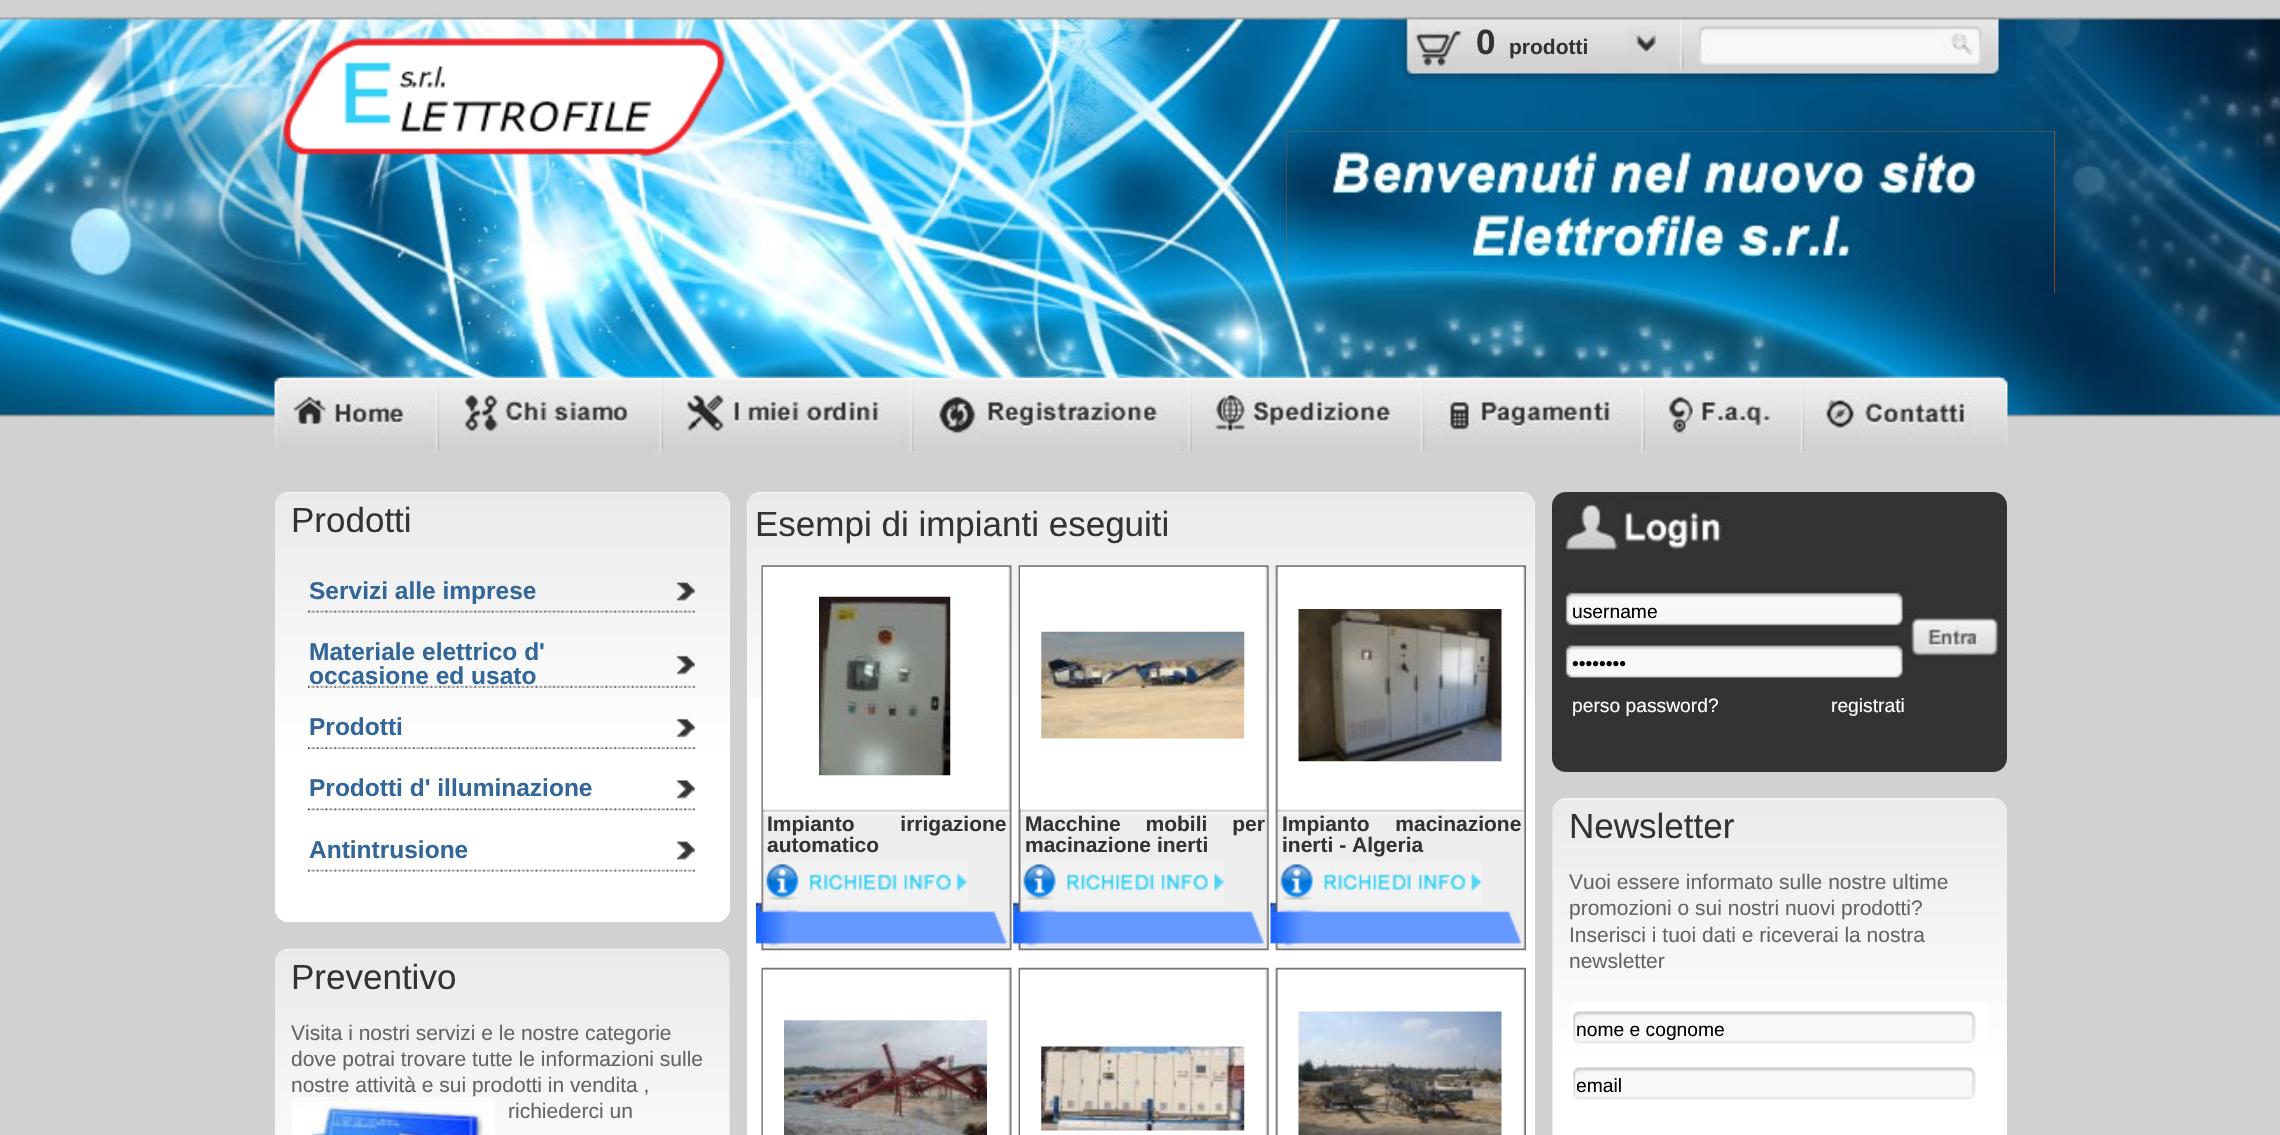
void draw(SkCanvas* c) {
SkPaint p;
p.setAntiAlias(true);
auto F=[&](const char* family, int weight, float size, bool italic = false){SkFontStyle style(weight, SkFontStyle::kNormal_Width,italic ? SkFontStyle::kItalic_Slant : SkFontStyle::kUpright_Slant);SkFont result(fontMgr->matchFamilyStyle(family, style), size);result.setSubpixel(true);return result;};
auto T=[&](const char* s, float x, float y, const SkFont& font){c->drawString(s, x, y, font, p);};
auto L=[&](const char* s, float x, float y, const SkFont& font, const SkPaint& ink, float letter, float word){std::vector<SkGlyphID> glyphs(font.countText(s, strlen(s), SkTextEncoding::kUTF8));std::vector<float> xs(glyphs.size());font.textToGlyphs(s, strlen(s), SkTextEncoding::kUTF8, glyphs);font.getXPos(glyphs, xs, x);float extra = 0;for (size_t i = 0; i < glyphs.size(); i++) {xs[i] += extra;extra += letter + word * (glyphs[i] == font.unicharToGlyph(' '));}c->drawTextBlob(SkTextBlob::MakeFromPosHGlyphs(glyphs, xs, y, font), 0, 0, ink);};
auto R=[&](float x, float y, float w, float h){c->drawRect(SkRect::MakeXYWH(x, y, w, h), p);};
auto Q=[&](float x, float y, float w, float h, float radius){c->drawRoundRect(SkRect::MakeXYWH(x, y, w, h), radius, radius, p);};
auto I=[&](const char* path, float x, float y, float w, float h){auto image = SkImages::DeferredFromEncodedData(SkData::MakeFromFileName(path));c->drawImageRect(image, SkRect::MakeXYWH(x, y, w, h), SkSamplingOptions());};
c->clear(0xffd1d1d1);
I("1.png",0,14,2280,406);
I("2.png",283,38,442,118);
I("3.png",1389,14,627,74);
auto f1 = F("Liberation Sans",700,35);
p.setColor(0xff333333);
T("0",1476,54,f1);
auto f2 = F("Liberation Sans",700,21);
T("prodotti",1509,54,f2);
I("4.png",1627,24,29,29);
I("5.png",1699,26,284,39);
I("6.png",1941,29,37,27);
p.setColor(0xffff6600);
R(1286,131,769,163);
I("7.png",1286,131,769,163);
I("8.png",274,376,1734,77);
I("9.png",274,378,166,75);
I("10.png",439,378,225,75);
I("11.png",663,378,251,75);
I("12.png",913,378,279,75);
I("13.png",1191,378,234,75);
I("14.png",1424,378,221,75);
I("15.png",1645,378,160,75);
I("16.png",1804,378,204,74);
p.setColor(0xffffffff);
Q(275,492,455,430,14);
I("17.png",275,492,455,430);
auto f3 = F("Liberation Sans",400,35);
p.setColor(0xff333333);
T("Prodotti",291,532,f3);
I("18.png",308,610,387,3);
auto f4 = F("Liberation Sans",700,24.5);
p.setColor(0xff336699);
T("Servizi alle imprese",309,599,f4);
I("19.png",676,582,19,19);
I("20.png",308,685,387,3);
T("Materiale elettrico d'",309,660,f4);
T("occasione ed usato",309,684,f4);
I("21.png",676,655,19,20);
I("22.png",308,746,387,3);
T("Prodotti",309,735,f4);
I("23.png",676,718,19,20);
I("24.png",308,808,387,3);
T("Prodotti d' illuminazione",309,796,f4);
I("25.png",676,780,19,19);
I("26.png",308,869,387,3);
T("Antintrusione",309,858,f4);
I("27.png",676,841,19,19);
I("28.png",275,948,455,187);
p.setColor(0xff333333);
T("Preventivo",291,989,f3);
auto f5 = F("Liberation Sans",400,21);
p.setColor(0xff656565);
T("Visita i nostri servizi e le nostre categorie",291,1040,f5);
T("dove potrai trovare tutte le informazioni sulle",291,1066,f5);
T("nostre attività e sui prodotti in vendita ,",291,1092,f5);
I("29.png",292,1097,203,38);
T("richiederci un",508,1118,f5);
p.setColor(0xffffffff);
Q(747,492,788,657,14);
I("30.png",747,492,788,206);
p.setColor(0xff333333);
T("Esempi di impianti eseguiti",755,536,f3);
I("31.png",756,565,256,386);
p.setColor(0xffffffff);
R(763,567,245,242);
I("32.png",819,596,132,180);
p.setColor(0xff333333);
L("Impianto irrigazione",767,831,f2,p,0,40);
T("automatico",767,852,f2);
I("33.png",765,863,203,42);
I("34.png",1013,565,256,386);
p.setColor(0xffffffff);
R(1020,567,245,242);
I("35.png",1041,631,204,108);
p.setColor(0xff333333);
L("Macchine mobili per",1025,831,f2,p,0,19);
T("macinazione inerti",1025,852,f2);
I("36.png",1022,863,203,42);
I("37.png",1270,565,256,386);
p.setColor(0xffffffff);
R(1278,567,245,242);
I("38.png",1298,609,204,153);
p.setColor(0xff333333);
L("Impianto macinazione",1282,831,f2,p,0,20);
T("inerti - Algeria",1282,852,f2);
I("39.png",1280,863,203,42);
I("40.png",761,967,251,168);
p.setColor(0xffffffff);
R(763,970,245,165);
I("41.png",784,1020,203,115);
I("42.png",1018,967,251,168);
R(1020,970,245,165);
I("43.png",1041,1046,204,85);
I("44.png",1275,967,251,168);
R(1278,970,245,165);
I("45.png",1298,1011,204,124);
p.setColor(0xff333333);
Q(1552,492,455,280,14);
I("46.png",1561,501,166,52);
I("47.png",1561,585,345,41);
auto f6 = F("Liberation Sans",400,19.25);
p.setColor(0xff000000);
T("username",1572,618,f6);
I("48.png",1906,611,98,47);
I("49.png",1561,637,345,41);
T("••••••••",1572,670,f6);
p.setColor(0xffffffff);
T("perso password?",1572,712,f6);
T("registrati",1831,712,f6);
I("50.png",1552,798,455,337);
p.setColor(0xff333333);
T("Newsletter",1569,838,f3);
p.setColor(0xff656565);
T("Vuoi essere informato sulle nostre ultime",1569,889,f5);
T("promozioni o sui nostri nuovi prodotti?",1569,915,f5);
T("Inserisci i tuoi dati e riceverai la nostra",1569,942,f5);
T("newsletter",1569,968,f5);
I("51.png",1570,1003,418,41);
p.setColor(0xff000000);
T("nome e cognome",1576,1036,f6);
I("52.png",1573,1067,403,33);
c->save();
c->clipRect(SkRect::MakeXYWH(1577,1075,415,21));
T("email",1576,1092,f6);
c->restore();
}
